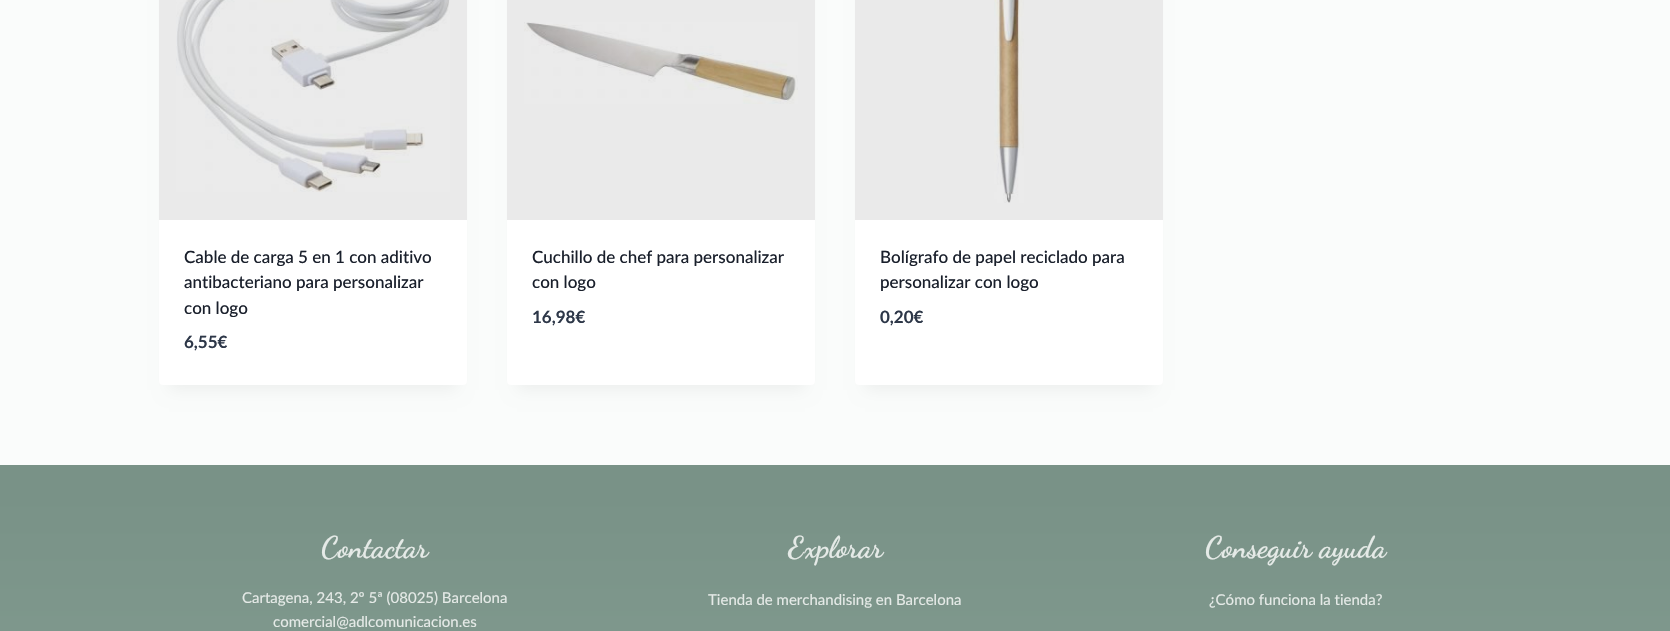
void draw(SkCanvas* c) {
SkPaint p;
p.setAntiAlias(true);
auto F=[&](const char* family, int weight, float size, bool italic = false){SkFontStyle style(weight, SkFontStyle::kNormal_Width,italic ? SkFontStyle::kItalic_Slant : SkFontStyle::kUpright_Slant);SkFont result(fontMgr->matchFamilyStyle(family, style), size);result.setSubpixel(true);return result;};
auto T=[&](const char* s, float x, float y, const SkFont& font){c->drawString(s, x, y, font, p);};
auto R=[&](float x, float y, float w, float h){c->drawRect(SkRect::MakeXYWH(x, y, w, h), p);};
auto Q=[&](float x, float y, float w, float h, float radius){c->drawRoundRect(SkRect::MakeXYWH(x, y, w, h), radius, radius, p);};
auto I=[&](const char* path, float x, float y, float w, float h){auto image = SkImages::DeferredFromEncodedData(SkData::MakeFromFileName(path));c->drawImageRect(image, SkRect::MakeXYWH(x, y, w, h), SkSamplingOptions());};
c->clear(0xfffafcfb);
p.setColor(0x0d000000);
p.setMaskFilter(SkMaskFilter::MakeBlur(kNormal_SkBlurStyle, 7.5));
c->drawRect(SkRect::MakeXYWH(169,-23,288,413),p);
p.setMaskFilter(nullptr);
p.setColor(0xffffffff);
Q(159,-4,308,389,4);
p.setColor(0xffeaeaea);
R(159,0,308,220);
I("1.png",176,0,274,192);
auto f1 = F("Lato",500,17);
p.setColor(0xff1a202c);
T("Cable de carga 5 en 1 con aditivo",184,263,f1);
T("antibacteriano para personalizar",184,288,f1);
T("con logo",184,314,f1);
auto f2 = F("Lato",700,17);
p.setColor(0xff2d3748);
T("6,55€",184,348,f2);
p.setColor(0x0d000000);
p.setMaskFilter(SkMaskFilter::MakeBlur(kNormal_SkBlurStyle, 7.5));
c->drawRect(SkRect::MakeXYWH(517,-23,288,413),p);
p.setMaskFilter(nullptr);
p.setColor(0xffffffff);
Q(507,-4,308,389,4);
p.setColor(0xffeaeaea);
R(507,0,308,220);
I("2.png",524,22,274,82);
p.setColor(0xff1a202c);
T("Cuchillo de chef para personalizar",532,263,f1);
T("con logo",532,288,f1);
p.setColor(0xff2d3748);
T("16,98€",532,323,f2);
p.setColor(0x0d000000);
p.setMaskFilter(SkMaskFilter::MakeBlur(kNormal_SkBlurStyle, 7.5));
c->drawRect(SkRect::MakeXYWH(865,-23,288,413),p);
p.setMaskFilter(nullptr);
p.setColor(0xffffffff);
Q(855,-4,308,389,4);
p.setColor(0xffeaeaea);
R(855,0,308,220);
I("3.png",994,0,30,203);
p.setColor(0xff1a202c);
T("Bolígrafo de papel reciclado para",880,263,f1);
T("personalizar con logo",880,288,f1);
p.setColor(0xff2d3748);
T("0,20€",880,323,f2);
{
const SkColor colors[] = {0xff92aca0,0xff799287};
const float stops[] = {0,.96};
const SkPoint ends[] = {{835,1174}, {835,465}};
p.setShader(SkGradientShader::MakeLinear(ends, colors, stops, 2, SkTileMode::kClamp));
p.setAlpha(255);
}
R(0,465,1670,166);
auto f3 = F("Dancing Script",700,30);
p.setShader(nullptr);
p.setColor(0xffe5eae7);
T("Contactar",321,557,f3);
auto f4 = F("Lato",400,15);
T("Cartagena, 243, 2º 5ª (08025) Barcelona",242,603,f4);
T("comercial@adlcomunicacion.es",273,627,f4);
T("Explorar",788,557,f3);
T("Tienda de merchandising en Barcelona",708,605,f4);
T("Conseguir ayuda",1205,557,f3);
T("¿Cómo funciona la tienda?",1209,605,f4);
}
